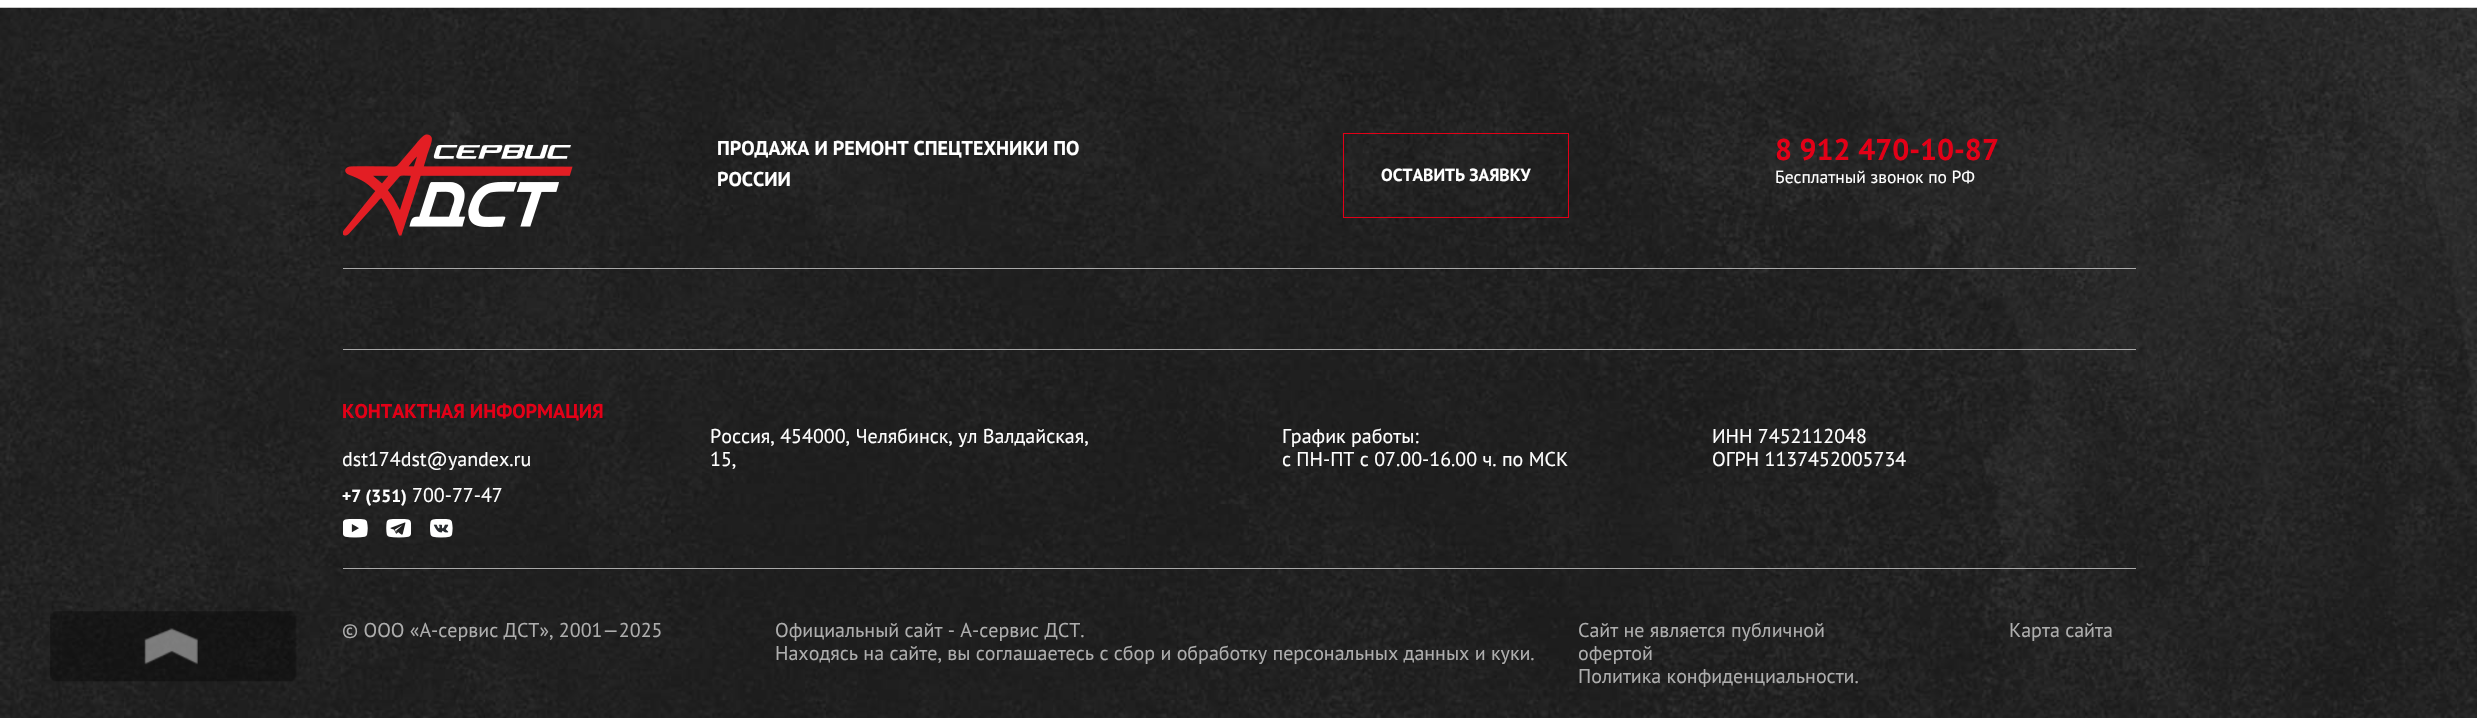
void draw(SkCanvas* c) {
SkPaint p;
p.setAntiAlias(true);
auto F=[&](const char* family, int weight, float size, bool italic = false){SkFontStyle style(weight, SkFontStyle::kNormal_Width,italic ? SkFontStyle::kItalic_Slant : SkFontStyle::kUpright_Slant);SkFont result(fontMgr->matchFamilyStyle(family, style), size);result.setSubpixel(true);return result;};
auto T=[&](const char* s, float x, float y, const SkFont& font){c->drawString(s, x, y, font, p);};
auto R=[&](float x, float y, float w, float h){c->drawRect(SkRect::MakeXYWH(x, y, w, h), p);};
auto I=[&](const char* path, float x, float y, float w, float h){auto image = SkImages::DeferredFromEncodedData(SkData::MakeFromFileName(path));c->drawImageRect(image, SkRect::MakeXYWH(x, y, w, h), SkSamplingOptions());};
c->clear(0xffffffff);
I("2.png",0,7,2477,711);
I("1.png",50,611,247,71);
I("3.png",343,134,230,102);
auto f1 = F("PT Sans",700,20);
p.setColor(0xffffffff);
T("ПРОДАЖА И РЕМОНТ СПЕЦТЕХНИКИ ПО",717,155,f1);
T("РОССИИ",717,186,f1);
p.setStroke(true);
p.setStrokeWidth(1);
p.setColor(0xffe30017);
c->drawRect(SkRect::MakeXYWH(1343.5,133.5,225,84),p);
auto f2 = F("PT Sans",700,17.5);
p.setStroke(false);
p.setColor(0xffffffff);
T("ОСТАВИТЬ ЗАЯВКУ",1381,181,f2);
auto f3 = F("PT Sans",700,30);
p.setColor(0xffe30017);
T("8 912 470-10-87",1775,160,f3);
auto f4 = F("PT Sans",400,17.5);
p.setColor(0xffffffff);
T("Бесплатный звонок по РФ",1775,183,f4);
p.setColor(0xcccccccc);
R(343,268,1793,1);
R(343,349,1793,1);
p.setColor(0xffe30017);
T("КОНТАКТНАЯ ИНФОРМАЦИЯ",342,418,f1);
auto f5 = F("PT Sans",400,20);
p.setColor(0xffffffff);
T("dst174dst@yandex.ru",342,466,f5);
T("+7 (351)",342,502,f2);
T("700-77-47",412,502,f5);
I("4.png",343,519,25,19);
I("5.png",386,519,25,19);
I("6.png",430,519,23,19);
T("Россия, 454000, Челябинск, ул Валдайская,",710,443,f5);
T("15,",710,466,f5);
T("График работы:",1282,443,f5);
T("с ПН-ПТ с 07.00-16.00 ч. по МСК",1282,466,f5);
T("ИНН 7452112048",1712,443,f5);
T("ОГРН 1137452005734",1712,466,f5);
p.setColor(0xcccccccc);
R(343,568,1793,1);
p.setColor(0xffaeaeae);
T("© ООО «А-сервис ДСТ», 2001—2025",342,637,f5);
T("Официальный сайт - А-сервис ДСТ.",775,637,f5);
T("Находясь на сайте, вы соглашаетесь c сбор и обработку персональных данных и куки.",775,660,f5);
T("Сайт не является публичной",1578,637,f5);
T("офертой",1578,660,f5);
T("Политика конфиденциальности.",1578,683,f5);
T("Карта сайта",2009,637,f5);
}
